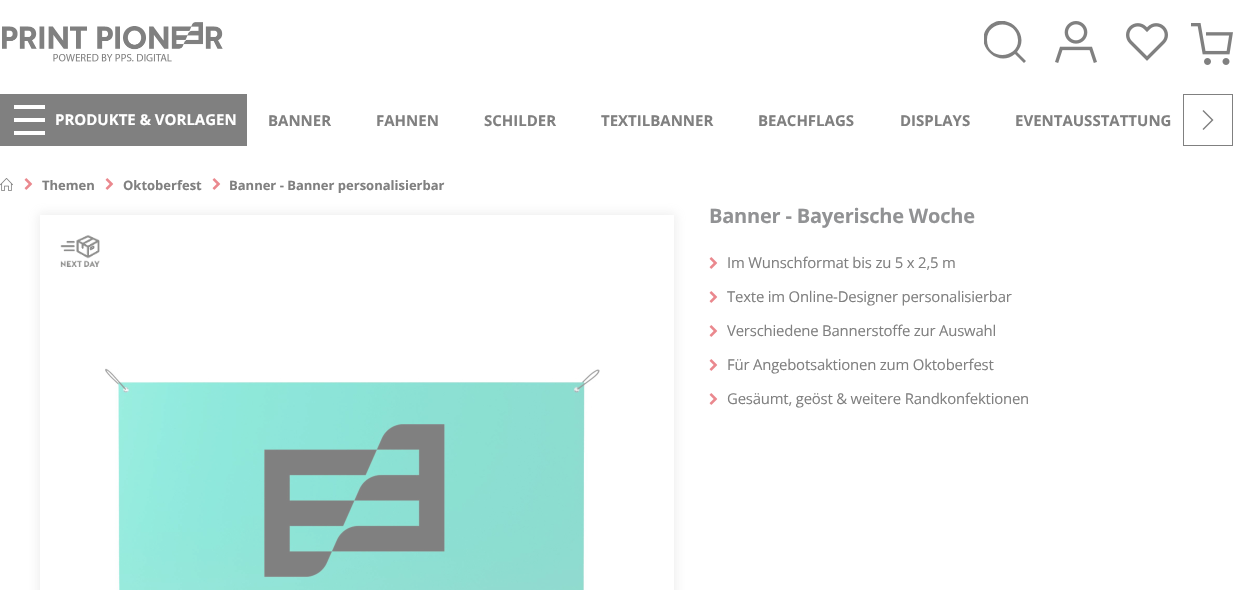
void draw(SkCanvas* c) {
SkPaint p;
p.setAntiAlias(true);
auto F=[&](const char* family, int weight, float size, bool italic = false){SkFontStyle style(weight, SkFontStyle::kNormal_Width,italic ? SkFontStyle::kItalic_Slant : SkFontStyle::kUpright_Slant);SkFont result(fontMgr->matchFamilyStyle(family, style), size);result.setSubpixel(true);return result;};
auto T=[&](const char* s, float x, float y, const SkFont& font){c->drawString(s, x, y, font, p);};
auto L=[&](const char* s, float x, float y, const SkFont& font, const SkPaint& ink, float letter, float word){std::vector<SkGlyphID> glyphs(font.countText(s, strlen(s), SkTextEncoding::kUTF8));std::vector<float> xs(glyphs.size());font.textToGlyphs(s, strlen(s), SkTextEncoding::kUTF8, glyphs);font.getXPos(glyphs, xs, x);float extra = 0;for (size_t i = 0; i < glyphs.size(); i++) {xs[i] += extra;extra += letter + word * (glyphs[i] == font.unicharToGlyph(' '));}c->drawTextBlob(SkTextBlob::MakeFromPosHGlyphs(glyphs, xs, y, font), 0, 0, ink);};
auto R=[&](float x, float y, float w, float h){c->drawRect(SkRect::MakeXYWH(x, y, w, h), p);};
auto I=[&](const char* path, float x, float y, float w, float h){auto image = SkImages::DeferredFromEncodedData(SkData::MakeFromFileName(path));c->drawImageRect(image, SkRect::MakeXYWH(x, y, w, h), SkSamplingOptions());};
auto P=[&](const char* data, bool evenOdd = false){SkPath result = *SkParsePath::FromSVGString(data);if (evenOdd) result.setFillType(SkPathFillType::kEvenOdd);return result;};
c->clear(0xffffffff);
I("1.png",2,22,221,40);
c->save();
c->clipRect(SkRect::MakeXYWH(984,21,42,42));
p.setColor(0xff808080);
c->drawPath(P("M1026 61l-9-9c15-18-11-42-28-26c-17 17 8 43 26 28l9 9zm-39-21c0-20 30-21 31 0c1 19-31 21-31 0z"),p);
c->restore();
I("2.png",1055,21,42,42);
I("3.png",1126,23,42,38);
I("4.png",1191,23,42,42);
R(0,94,247,52);
p.setColor(0xffffffff);
R(14,118,31,4);
R(14,105,31,4);
R(14,131,31,4);
auto f1 = F("Open Sans",700,15);
T("PRODUKTE & VORLAGEN",55,125,f1);
p.setColor(0xff808080);
T("BANNER",268,126,f1);
T("FAHNEN",376,126,f1);
T("SCHILDER",484,126,f1);
T("TEXTILBANNER",601,126,f1);
T("BEACHFLAGS",758,126,f1);
T("DISPLAYS",900,126,f1);
T("EVENTAUSSTATTUNG",1015,126,f1);
c->drawPath(P("M1213.5 120l-10 10l-1-1l9-9l-9-9l1-1z"),p);
p.setStroke(true);
p.setStrokeWidth(1);
c->drawRect(SkRect::MakeXYWH(1183.5,94.5,49,51),p);
I("5.png",0,178,13,13);
I("6.png",24,178,9,12);
auto f2 = F("Open Sans",700,13);
p.setStroke(false);
T("Themen",42,190,f2);
I("6.png",105,178,9,12);
T("Oktoberfest",123,190,f2);
I("6.png",212,178,9,12);
T("Banner - Banner personalisierbar",229,190,f2);
c->save();
c->clipPath(P("M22 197h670v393h-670zm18 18h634v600h-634z",true),true);
p.setColor(0x33aaaaaa);
p.setMaskFilter(SkMaskFilter::MakeBlur(kNormal_SkBlurStyle, 5));
c->drawRect(SkRect::MakeXYWH(38,213,638,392),p);
p.setMaskFilter(nullptr);
c->restore();
I("7.png",60,235,40,32);
I("8.png",105,368,495,222);
auto f3 = F("Open Sans",700,20);
p.setColor(0xff919294);
L("Banner - Bayerische Woche",709,223,f3,p,-.2,0);
I("6.png",709,257,9,12);
auto f4 = F("Open Sans",400,14.9);
p.setColor(0xff808080);
L("Im Wunschformat bis zu 5 x 2,5 m",727,268,f4,p,-.2,0);
I("6.png",709,291,9,12);
L("Texte im Online-Designer personalisierbar",727,302,f4,p,-.2,0);
I("6.png",709,325,9,12);
L("Verschiedene Bannerstoffe zur Auswahl",727,336,f4,p,-.2,0);
I("6.png",709,359,9,12);
L("Für Angebotsaktionen zum Oktoberfest",727,370,f4,p,-.2,0);
I("6.png",709,393,9,12);
L("Gesäumt, geöst & weitere Randkonfektionen",727,404,f4,p,-.2,0);
}
